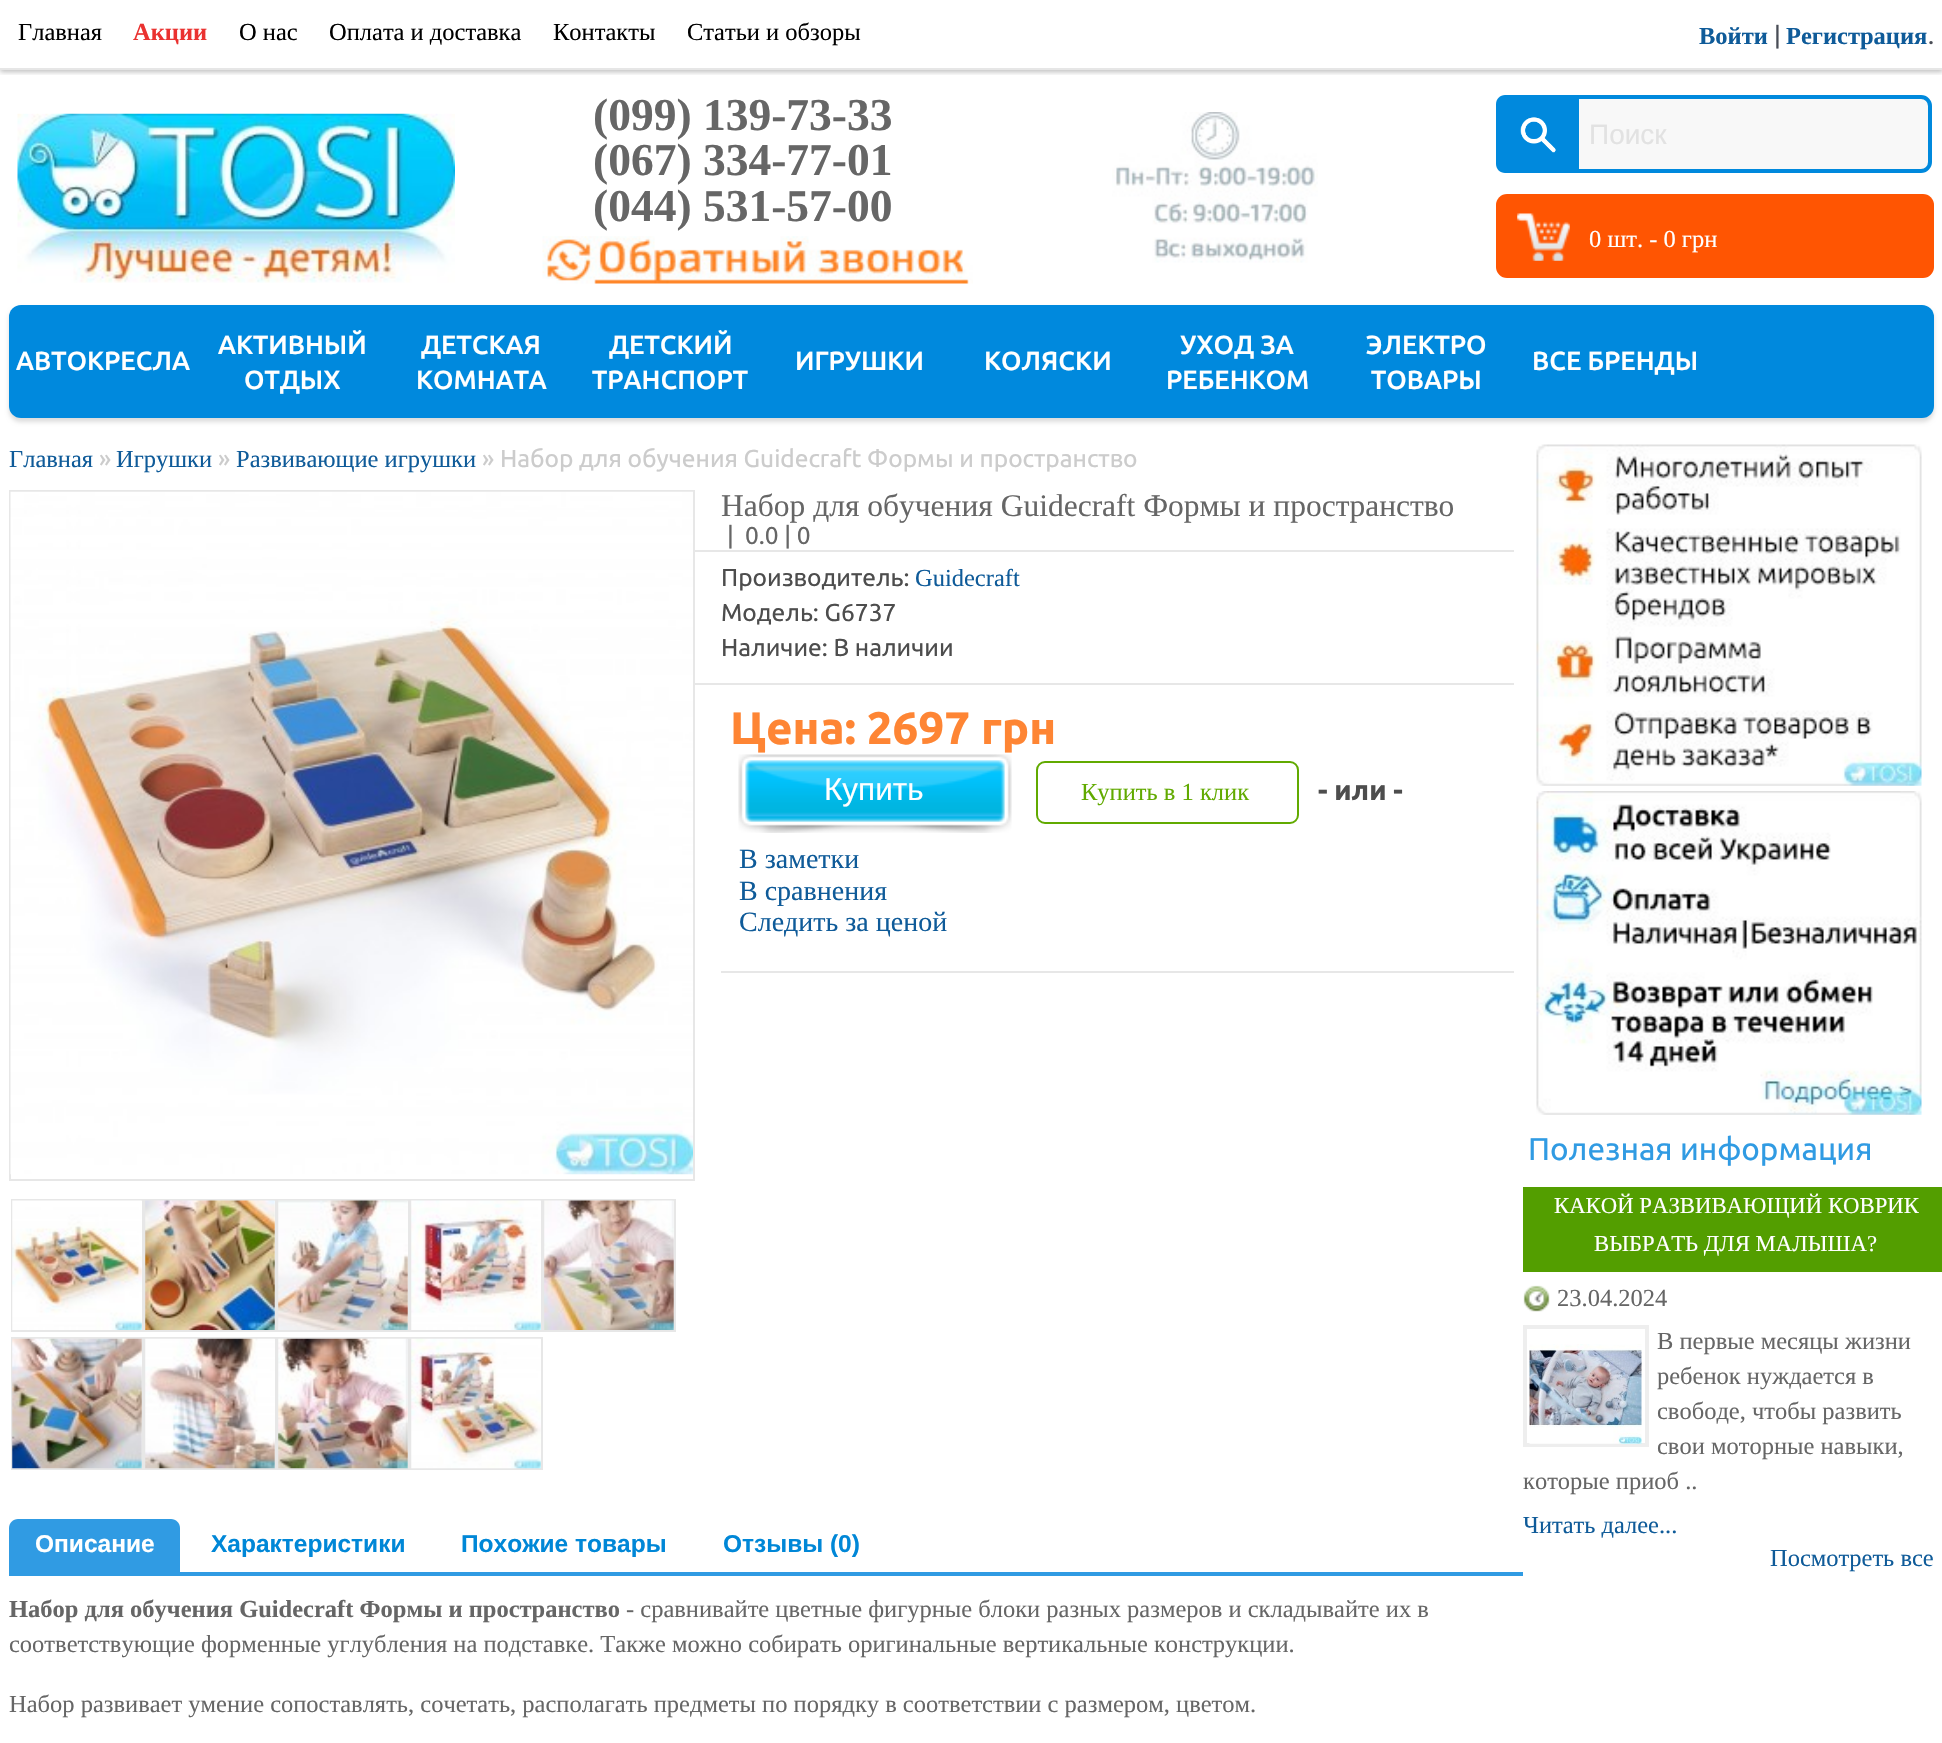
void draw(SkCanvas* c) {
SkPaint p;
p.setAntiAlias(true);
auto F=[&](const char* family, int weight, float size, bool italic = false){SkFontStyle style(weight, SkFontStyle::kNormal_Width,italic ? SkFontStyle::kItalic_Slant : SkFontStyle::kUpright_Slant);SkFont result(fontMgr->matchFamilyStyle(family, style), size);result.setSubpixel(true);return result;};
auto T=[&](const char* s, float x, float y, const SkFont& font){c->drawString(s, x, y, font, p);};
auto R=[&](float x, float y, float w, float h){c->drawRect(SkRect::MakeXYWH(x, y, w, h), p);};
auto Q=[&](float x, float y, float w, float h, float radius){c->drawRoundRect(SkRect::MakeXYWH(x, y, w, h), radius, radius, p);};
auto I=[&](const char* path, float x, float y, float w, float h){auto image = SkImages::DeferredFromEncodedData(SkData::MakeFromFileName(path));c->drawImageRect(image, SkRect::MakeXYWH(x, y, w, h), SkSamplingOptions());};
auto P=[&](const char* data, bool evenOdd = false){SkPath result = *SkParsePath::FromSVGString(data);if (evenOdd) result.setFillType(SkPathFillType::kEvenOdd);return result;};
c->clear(0xffffffff);
c->save();
c->clipRect(SkRect::MakeXYWH(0,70,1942,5));
p.setColor(0x40000000);
p.setMaskFilter(SkMaskFilter::MakeBlur(kNormal_SkBlurStyle, 2.5));
c->drawRect(SkRect::MakeXYWH(0,2,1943,70),p);
p.setMaskFilter(nullptr);
c->restore();
p.setColor(0xffe6e6e6);
R(0,68,1942,2);
auto f1 = F("Liberation Serif",400,24.5);
p.setColor(0xff000000);
T("Главная",18,40,f1);
auto f2 = F("Liberation Serif",700,24.5);
p.setColor(0xffea3230);
T("Акции",133,40,f2);
p.setColor(0xff000000);
T("О нас",239,40,f1);
T("Оплата и доставка",329,40,f1);
T("Контакты",553,40,f1);
T("Статьи и обзоры",687,40,f1);
p.setColor(0xff0f5b99);
T("Войти",1699,44,f2);
auto f3 = F("Ubuntu",400,24.5);
p.setColor(0xff494d56);
T("|",1774,44,f3);
p.setColor(0xff0f5b99);
T("Регистрация",1786,44,f2);
p.setColor(0xff494d56);
T(".",1928,44,f3);
I("1.png",17,113,438,170);
auto f4 = F("Liberation Serif",700,45.5);
p.setColor(0xff666666);
T("(099) 139-73-33",593,130,f4);
T("(067) 334-77-01",593,175,f4);
T("(044) 531-57-00",593,221,f4);
I("2.png",542,236,431,48);
I("3.png",1112,112,206,151);
p.setColor(0xfff8f8f8);
c->drawRoundRect(SkRect::MakeXYWH(1570,97,360,74),9,9,p);
p.setStroke(true);
p.setStrokeWidth(4);
p.setColor(0xff0089dd);
c->drawRoundRect(SkRect::MakeXYWH(1570,97,360,74),9,9,p);
p.setStroke(false);
c->drawPath(P("M1505 95h74v78h-74c-5 0-9-4-9-9v-60c0-5 4-9 9-9z"),p);
I("4.png",1520,117,36,36);
auto f5 = F("Liberation Sans",400,28);
p.setColor(0xffe2e2e2);
T("Поиск",1589,144,f5);
p.setColor(0xffff5502);
Q(1496,194,438,84,11);
I("5.png",1517,213,53,48);
p.setColor(0xffffffff);
T("0 шт. - 0 грн",1589,247,f1);
p.setColor(0xffdddddd);
p.setMaskFilter(SkMaskFilter::MakeBlur(kNormal_SkBlurStyle, 2));
c->drawRoundRect(SkRect::MakeXYWH(9,308,1925,114),12,12,p);
p.setMaskFilter(nullptr);
p.setColor(0xff0089dd);
Q(9,305,1925,113,12);
auto f6 = F("Ubuntu",500,26.25);
p.setColor(0xffffffff);
T("АВТОКРЕСЛА",16,370,f6);
T("АКТИВНЫЙ",218,354,f6);
T("ОТДЫХ",244,389,f6);
T("ДЕТСКАЯ",421,354,f6);
T("КОМНАТА",416,389,f6);
T("ДЕТСКИЙ",609,354,f6);
T("ТРАНСПОРТ",592,389,f6);
T("ИГРУШКИ",795,370,f6);
T("КОЛЯСКИ",984,370,f6);
T("УХОД ЗА",1180,354,f6);
T("РЕБЕНКОМ",1166,389,f6);
T("ЭЛЕКТРО",1366,354,f6);
T("ТОВАРЫ",1371,389,f6);
T("ВСЕ БРЕНДЫ",1532,370,f6);
p.setColor(0xff0f5b99);
T("Главная",9,467,f1);
p.setColor(0xffcccccc);
T("»",99,467,f3);
p.setColor(0xff0f5b99);
T("Игрушки",116,467,f1);
p.setColor(0xffcccccc);
T("»",218,467,f3);
p.setColor(0xff0f5b99);
T("Развивающие игрушки",236,467,f1);
p.setColor(0xffcccccc);
T("» Набор для обучения Guidecraft Формы и пространство",482,467,f3);
p.setStroke(true);
p.setStrokeWidth(2);
p.setColor(0xffe7e7e7);
c->drawRect(SkRect::MakeXYWH(10,491,684,689),p);
I("6.png",10,491,683,684);
c->drawRect(SkRect::MakeXYWH(12,1200,131,131),p);
I("7.png",12,1200,130,130);
c->drawRect(SkRect::MakeXYWH(145,1200,131,131),p);
I("8.png",145,1200,130,130);
c->drawRect(SkRect::MakeXYWH(278,1200,131,131),p);
I("9.png",278,1200,130,130);
c->drawRect(SkRect::MakeXYWH(411,1200,131,131),p);
I("10.png",411,1200,130,130);
c->drawRect(SkRect::MakeXYWH(544,1200,131,131),p);
I("11.png",544,1200,130,130);
c->drawRect(SkRect::MakeXYWH(12,1338,131,131),p);
I("12.png",12,1338,130,131);
c->drawRect(SkRect::MakeXYWH(145,1338,131,131),p);
I("13.png",145,1338,130,131);
c->drawRect(SkRect::MakeXYWH(278,1338,131,131),p);
I("14.png",278,1338,130,131);
c->drawRect(SkRect::MakeXYWH(411,1338,131,131),p);
I("15.png",411,1338,130,131);
auto f7 = F("Liberation Serif",400,31.5);
p.setStroke(false);
p.setColor(0xff666666);
T("Набор для обучения Guidecraft Формы и пространство",721,516,f7);
T("|",727,544,f3);
T("0.0 | 0",745,544,f3);
p.setColor(0xffe7e7e7);
R(695,550,819,2);
R(695,683,819,2);
p.setColor(0xff4d4d4d);
T("Производитель:",721,586,f3);
p.setColor(0xff0f5b99);
T("Guidecraft",915,586,f1);
p.setColor(0xff4d4d4d);
T("Модель: G6737",721,621,f3);
T("Наличие: В наличии",721,656,f3);
p.setColor(0xffe7e7e7);
R(721,971,793,2);
auto f8 = F("Ubuntu",700,45.5);
p.setColor(0xfffe8534);
T("Цена: 2697 грн",730,744,f8);
I("16.png",738,754,274,79);
auto f9 = F("Liberation Sans",400,31.5);
p.setColor(0xffffffff);
T("Купить",824,800,f9);
p.setStroke(true);
p.setColor(0xff61aa00);
c->drawRoundRect(SkRect::MakeXYWH(1037,762,261,61),8,8,p);
p.setStroke(false);
T("Купить в 1 клик",1081,800,f1);
auto f10 = F("Ubuntu",700,28);
p.setColor(0xff4d4d4d);
T("- или -",1318,800,f10);
auto f11 = F("Liberation Serif",400,28);
p.setColor(0xff0f5b99);
T("В заметки",739,868,f11);
T("В сравнения",739,900,f11);
T("Следить за ценой",739,931,f11);
p.setColor(0xff309be3);
R(9,1572,1514,4);
c->drawPath(P("M18 1519h153c5 0 9 4 9 9v44h-171v-44c0-5 4-9 9-9z"),p);
auto f12 = F("Liberation Sans",700,24.5);
p.setColor(0xffffffff);
T("Описание",35,1552,f12);
p.setColor(0xff0087d7);
T("Характеристики",211,1552,f12);
T("Похожие товары",461,1552,f12);
T("Отзывы (0)",723,1552,f12);
I("17.png",1536,444,386,342);
I("18.png",1536,791,386,324);
auto f13 = F("Ubuntu",400,31.5);
p.setColor(0xff309be3);
T("Полезная информация",1528,1160,f13);
p.setColor(0xff539e00);
R(1523,1187,419,85);
auto f14 = F("Liberation Serif",400,22.75);
p.setColor(0xffffffff);
T("КАКОЙ РАЗВИВАЮЩИЙ КОВРИК",1554,1213,f14);
T("ВЫБРАТЬ ДЛЯ МАЛЫША?",1594,1251,f14);
I("19.png",1523,1285,27,27);
p.setColor(0xff666666);
T("23.04.2024",1557,1306,f1);
p.setStroke(true);
p.setStrokeWidth(4);
p.setColor(0xffeeeeee);
c->drawRect(SkRect::MakeXYWH(1525,1327,122,118),p);
I("20.png",1529,1344,113,100);
p.setStroke(false);
p.setColor(0xff666666);
T("В первые месяцы жизни",1657,1349,f1);
T("ребенок нуждается в",1657,1384,f1);
T("свободе, чтобы развить",1657,1419,f1);
T("свои моторные навыки,",1657,1454,f1);
T("которые приоб ..",1523,1489,f1);
p.setColor(0xff0f5b99);
T("Читать далее...",1523,1533,f1);
T("Посмотреть все",1770,1566,f1);
p.setColor(0xff666666);
T("Набор для обучения Guidecraft Формы и пространство",9,1617,f2);
T("- сравнивайте цветные фигурные блоки разных размеров и складывайте их в",626,1617,f1);
T("соответствующие форменные углубления на подставке. Также можно собирать оригинальные вертикальные конструкции.",9,1652,f1);
T("Набор развивает умение сопоставлять, сочетать, располагать предметы по порядку в соответствии с размером, цветом.",9,1712,f1);
}
